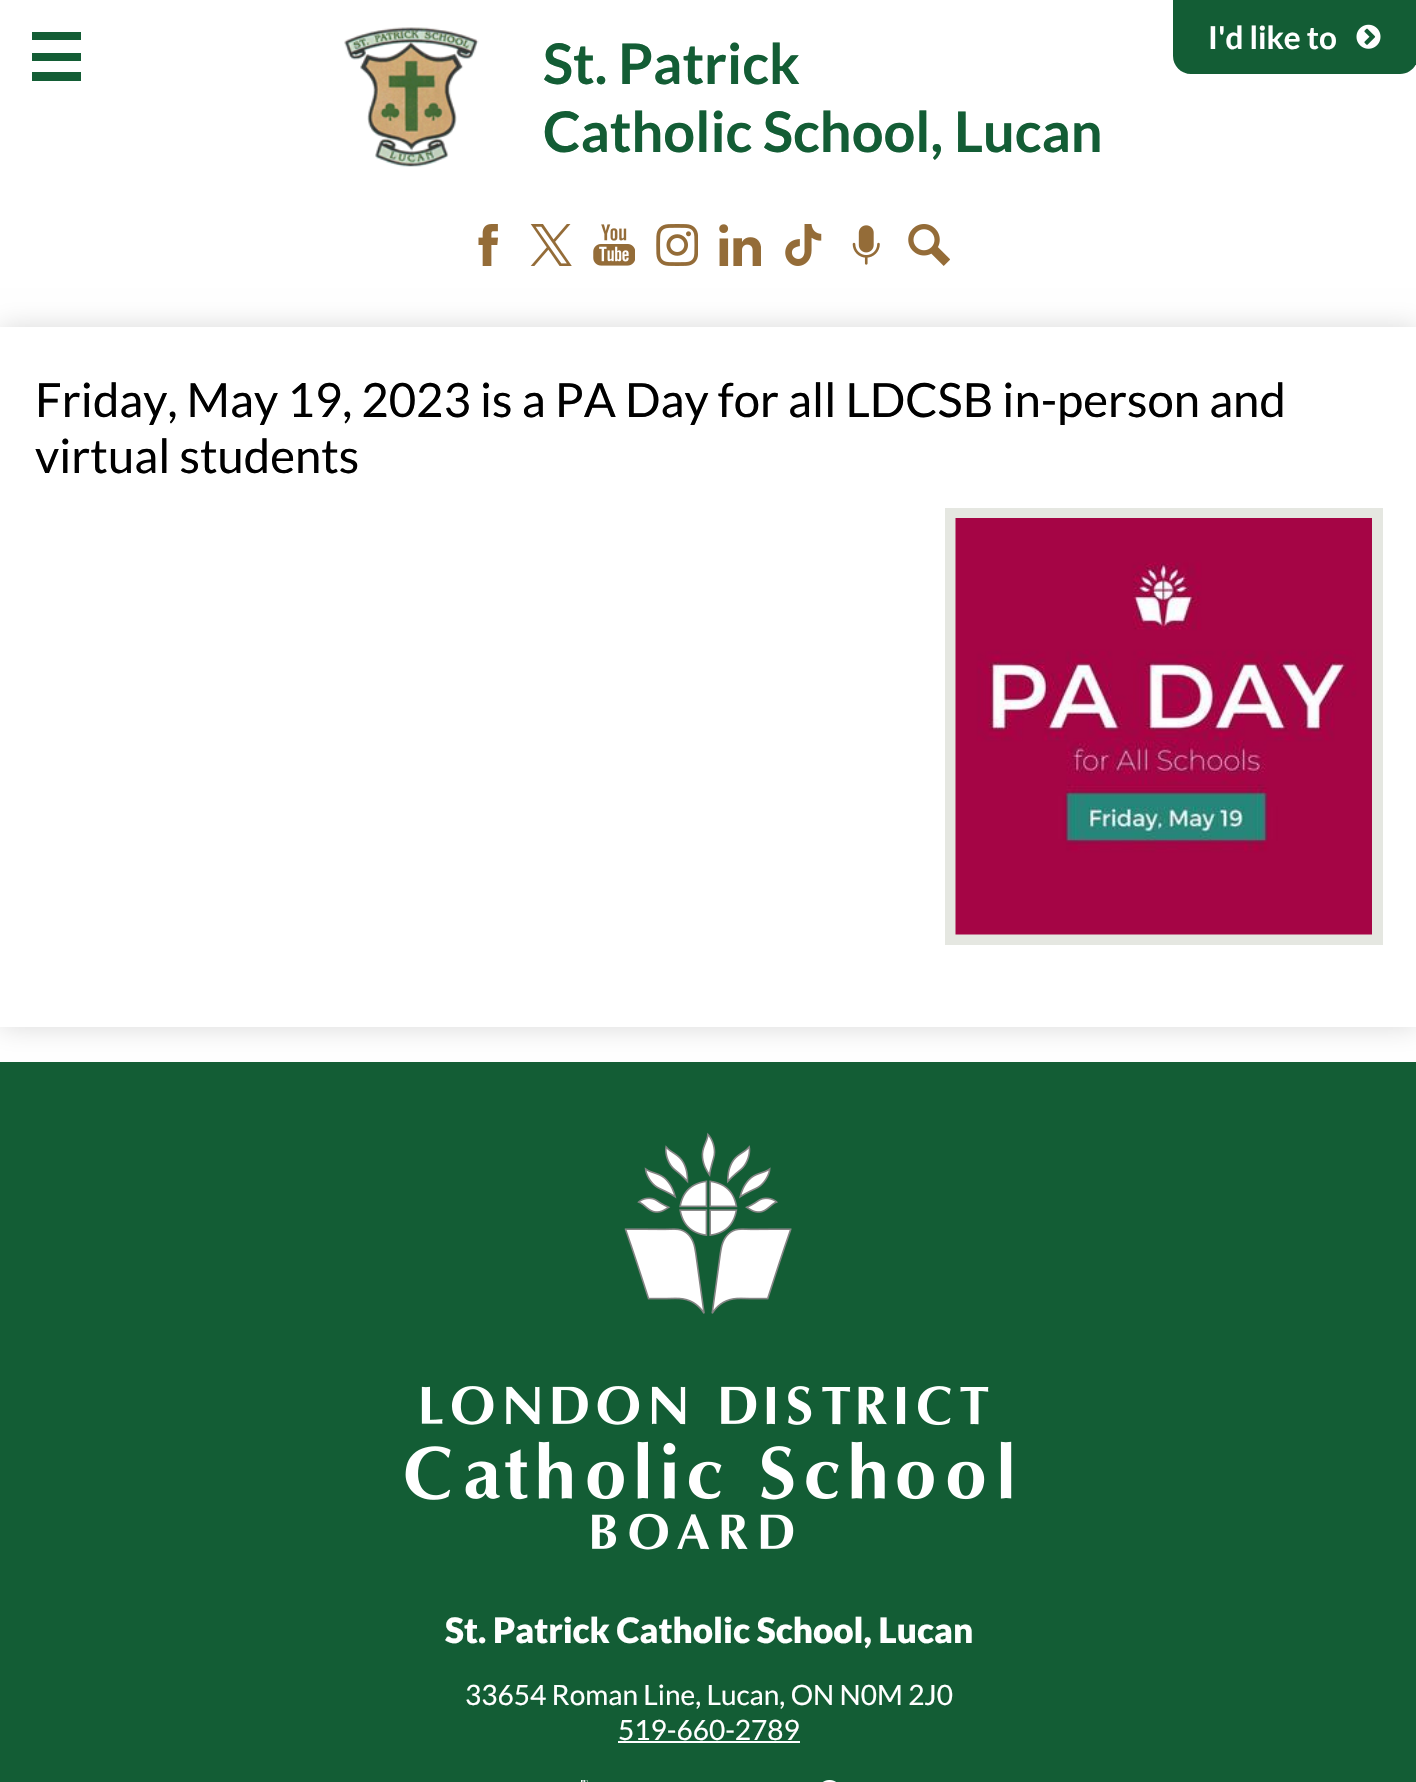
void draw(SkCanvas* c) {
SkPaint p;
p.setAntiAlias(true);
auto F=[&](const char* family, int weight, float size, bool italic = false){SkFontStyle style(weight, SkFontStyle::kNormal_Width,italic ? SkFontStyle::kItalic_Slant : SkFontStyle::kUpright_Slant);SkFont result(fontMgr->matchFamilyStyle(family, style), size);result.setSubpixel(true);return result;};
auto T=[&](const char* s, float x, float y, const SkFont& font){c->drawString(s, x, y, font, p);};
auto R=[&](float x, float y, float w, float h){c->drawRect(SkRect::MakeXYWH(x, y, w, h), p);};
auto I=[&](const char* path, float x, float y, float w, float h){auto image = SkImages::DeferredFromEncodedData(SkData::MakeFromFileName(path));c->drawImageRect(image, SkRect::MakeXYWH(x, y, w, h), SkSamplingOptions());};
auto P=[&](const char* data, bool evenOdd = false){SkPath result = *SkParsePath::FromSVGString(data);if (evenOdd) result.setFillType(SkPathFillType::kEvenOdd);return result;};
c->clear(0xffffffff);
p.setColor(0xff135d35);
R(32,32,49,8);
R(32,53,49,8);
R(32,72,49,9);
I("1.png",344,27,135,140);
auto f1 = F("Lato",700,56);
T("St. Patrick",543,84,f1);
T("Catholic School, Lucan",543,152,f1);
c->drawPath(P("M1173 0h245v56c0 10-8 18-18 18h-209c-10 0-18-8-18-18z"),p);
auto f2 = F("Lato",700,31.5);
p.setColor(0xffffffff);
T("I'd like to",1208,49,f2);
I("2.png",1356,24,25,25);
I("3.png",478,224,20,42);
I("4.png",530,224,42,42);
I("5.png",593,224,42,42);
I("6.png",656,224,42,42);
I("7.png",719,224,42,42);
I("8.png",785,224,37,42);
I("9.png",852,225,28,40);
I("10.png",908,224,42,42);
p.setColor(0x26000000);
p.setMaskFilter(SkMaskFilter::MakeBlur(kNormal_SkBlurStyle, 13));
c->drawRect(SkRect::MakeXYWH(0,327,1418,700),p);
p.setMaskFilter(nullptr);
p.setColor(0xffffffff);
R(0,327,1416,700);
auto f3 = F("Lato",400,47.25);
p.setColor(0xff000000);
T("Friday, May 19, 2023 is a PA Day for all LDCSB in-person and",35,417,f3);
T("virtual students",35,473,f3);
p.setStroke(true);
p.setStrokeWidth(11);
p.setColor(0xffe5e7e1);
c->drawRect(SkRect::MakeXYWH(950.5,513.5,427,426),p);
I("11.png",955,518,417,417);
p.setStroke(false);
p.setColor(0xff135d35);
R(0,1062,1416,720);
I("12.png",624,1132,168,182);
I("13.png",405,1386,607,164);
auto f4 = F("Lato",900,35);
p.setColor(0xffffffff);
T("St. Patrick Catholic School, Lucan",445,1643,f4);
auto f5 = F("Lato",400,28);
T("33654 Roman Line, Lucan, ON N0M 2J0",465,1705,f5);
T("519-660-2789",618,1740,f5);
R(618,1741,182,2);
I("14.png",581,1780,7,2);
I("15.png",823,1780,13,2);
}
